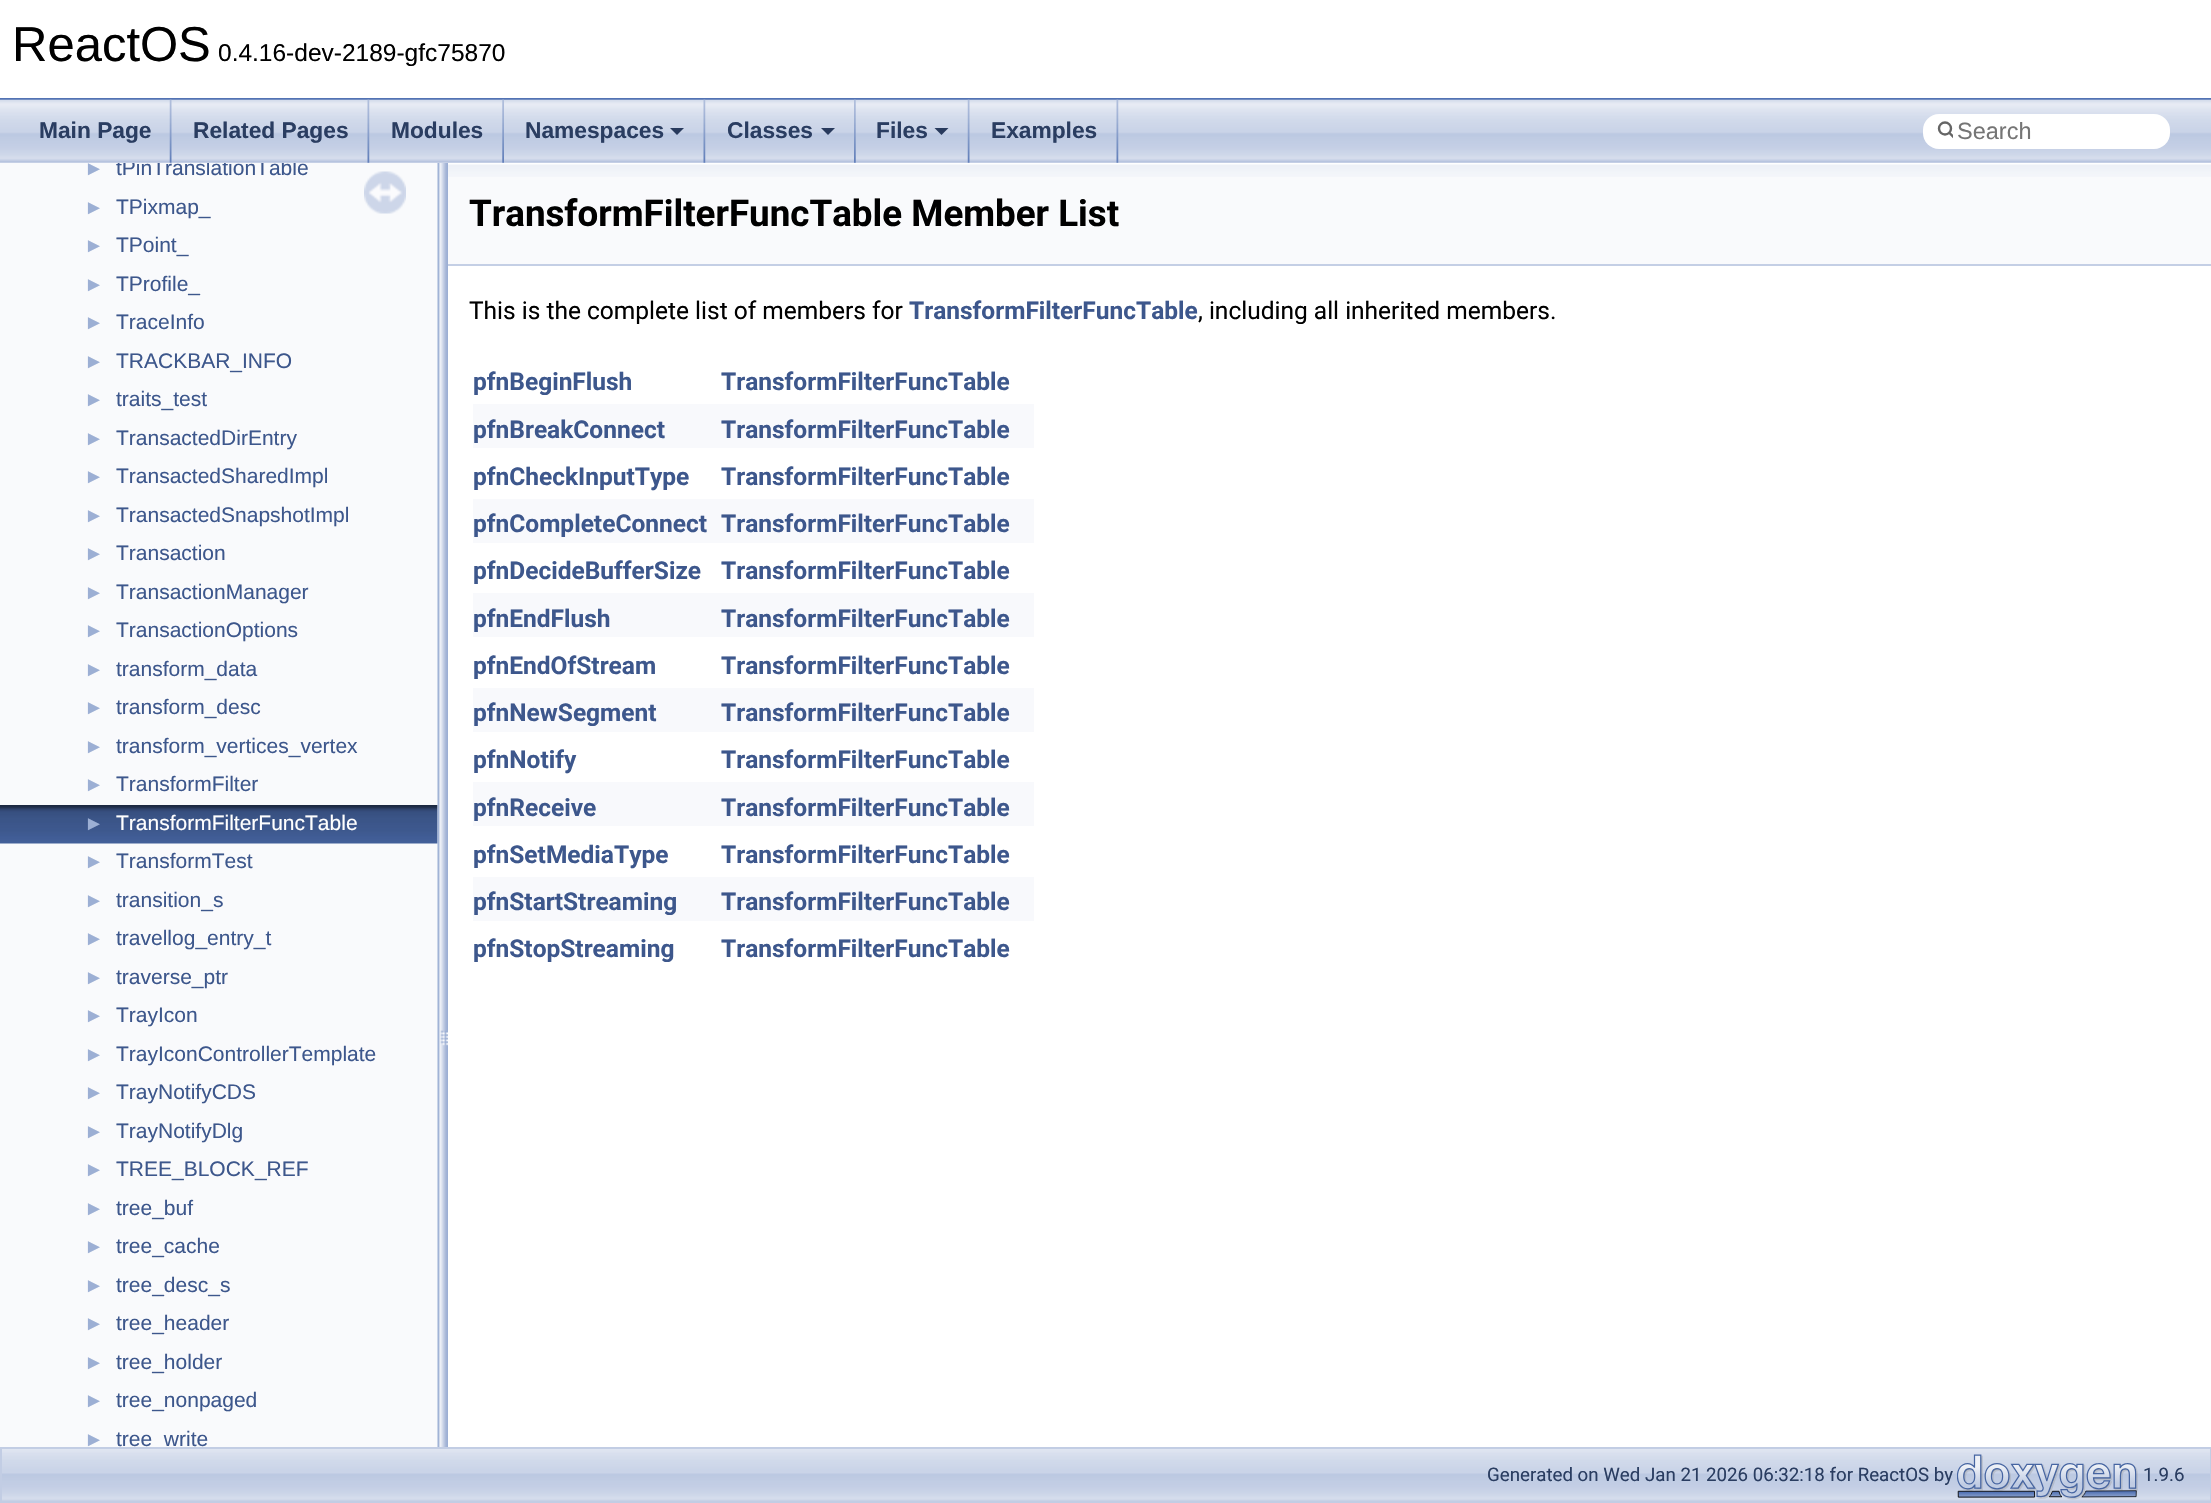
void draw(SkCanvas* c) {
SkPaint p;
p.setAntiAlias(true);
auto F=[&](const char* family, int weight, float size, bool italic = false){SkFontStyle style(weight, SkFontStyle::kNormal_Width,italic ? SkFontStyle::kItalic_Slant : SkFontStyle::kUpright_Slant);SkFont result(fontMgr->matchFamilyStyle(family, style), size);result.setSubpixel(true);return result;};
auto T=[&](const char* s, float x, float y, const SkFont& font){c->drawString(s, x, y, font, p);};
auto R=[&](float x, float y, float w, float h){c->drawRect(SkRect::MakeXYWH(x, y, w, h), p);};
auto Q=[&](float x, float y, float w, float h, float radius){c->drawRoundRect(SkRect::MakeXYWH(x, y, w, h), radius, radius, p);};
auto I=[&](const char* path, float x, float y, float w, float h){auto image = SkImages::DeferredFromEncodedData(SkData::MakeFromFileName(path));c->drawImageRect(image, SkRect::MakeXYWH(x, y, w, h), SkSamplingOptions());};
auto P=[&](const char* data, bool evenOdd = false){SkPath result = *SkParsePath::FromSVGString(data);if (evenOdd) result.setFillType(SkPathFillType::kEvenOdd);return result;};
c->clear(0xffffffff);
p.setColor(0xff5373b4);
R(0,98,2211,2);
auto f1 = F("Liberation Sans",400,49);
p.setColor(0xff000000);
T("ReactOS",12,61,f1);
auto f2 = F("Liberation Sans",400,24.5);
T("0.4.16-dev-2189-gfc75870",218,61,f2);
p.setColor(0xfff9fafc);
R(0,163,438,1284);
I("6.png",0,805,438,39);
I("8.png",437,162,11,1285);
I("1.png",0,99,2211,64);
I("2.png",169,99,3,64);
auto f3 = F("Liberation Sans",700,22.75);
p.setColor(0xff2a3d61);
T("Main Page",39,138,f3);
I("3.png",367,99,3,64);
T("Related Pages",193,138,f3);
I("4.png",502,99,2,64);
T("Modules",391,138,f3);
I("3.png",703,99,3,64);
T("Namespaces",525,138,f3);
p.setColor(0xff283a5d);
c->drawPath(P("M670 128h14l-7 7z"),p);
I("5.png",854,99,2,64);
p.setColor(0xff2a3d61);
T("Classes",727,138,f3);
p.setColor(0xff283a5d);
c->drawPath(P("M821 128h14l-7 7z"),p);
I("2.png",967,99,3,64);
p.setColor(0xff2a3d61);
T("Files",876,138,f3);
p.setColor(0xff283a5d);
c->drawPath(P("M934.5 128h14l-7 7z"),p);
I("3.png",1116,99,3,64);
p.setColor(0xff2a3d61);
T("Examples",991,138,f3);
p.setColor(0xffffffff);
Q(1923,114,247,35,16);
p.setStroke(true);
p.setStrokeWidth(2.4);
p.setColor(0xff656565);
c->drawCircle(1945,128.5,6,p);
c->save();
c->clipRect(SkRect::MakeXYWH(1936,114,17,33));
p.setStrokeCap(SkPaint::kRound_Cap);
c->drawPath(P("M1949.5 133l5 5"),p);
c->restore();
auto f4 = F("Liberation Sans",400,23.5);
p.setStroke(false);
p.setColor(0xff757575);
T("Search",1957,139,f4);
auto f5 = F("Liberation Sans",400,20);
p.setColor(0xff9cafd4);
T("►",84,175,f5);
c->save();
c->clipRect(SkRect::MakeXYWH(0,163,438,1284));
auto f6 = F("Liberation Sans",400,21);
p.setColor(0xff3d578c);
T("tPinTranslationTable",116,175,f6);
c->restore();
p.setColor(0xff9cafd4);
T("►",84,214,f5);
p.setColor(0xff3d578c);
T("TPixmap_",116,214,f6);
p.setColor(0xff9cafd4);
T("►",84,252,f5);
p.setColor(0xff3d578c);
T("TPoint_",116,252,f6);
p.setColor(0xff9cafd4);
T("►",84,291,f5);
p.setColor(0xff3d578c);
T("TProfile_",116,291,f6);
p.setColor(0xff9cafd4);
T("►",84,329,f5);
p.setColor(0xff3d578c);
T("TraceInfo",116,329,f6);
p.setColor(0xff9cafd4);
T("►",84,368,f5);
p.setColor(0xff3d578c);
T("TRACKBAR_INFO",116,368,f6);
p.setColor(0xff9cafd4);
T("►",84,406,f5);
p.setColor(0xff3d578c);
T("traits_test",116,406,f6);
p.setColor(0xff9cafd4);
T("►",84,445,f5);
p.setColor(0xff3d578c);
T("TransactedDirEntry",116,445,f6);
p.setColor(0xff9cafd4);
T("►",84,483,f5);
p.setColor(0xff3d578c);
T("TransactedSharedImpl",116,483,f6);
p.setColor(0xff9cafd4);
T("►",84,522,f5);
p.setColor(0xff3d578c);
T("TransactedSnapshotImpl",116,522,f6);
p.setColor(0xff9cafd4);
T("►",84,560,f5);
p.setColor(0xff3d578c);
T("Transaction",116,560,f6);
p.setColor(0xff9cafd4);
T("►",84,599,f5);
p.setColor(0xff3d578c);
T("TransactionManager",116,599,f6);
p.setColor(0xff9cafd4);
T("►",84,637,f5);
p.setColor(0xff3d578c);
T("TransactionOptions",116,637,f6);
p.setColor(0xff9cafd4);
T("►",84,676,f5);
p.setColor(0xff3d578c);
T("transform_data",116,676,f6);
p.setColor(0xff9cafd4);
T("►",84,714,f5);
p.setColor(0xff3d578c);
T("transform_desc",116,714,f6);
p.setColor(0xff9cafd4);
T("►",84,753,f5);
p.setColor(0xff3d578c);
T("transform_vertices_vertex",116,753,f6);
p.setColor(0xff9cafd4);
T("►",84,791,f5);
p.setColor(0xff3d578c);
T("TransformFilter",116,791,f6);
p.setColor(0xff9cafd4);
T("►",84,830,f5);
p.setColor(0xffffffff);
T("TransformFilterFuncTable",116,830,f6);
p.setColor(0xff9cafd4);
T("►",84,868,f5);
p.setColor(0xff3d578c);
T("TransformTest",116,868,f6);
p.setColor(0xff9cafd4);
T("►",84,907,f5);
p.setColor(0xff3d578c);
T("transition_s",116,907,f6);
p.setColor(0xff9cafd4);
T("►",84,945,f5);
p.setColor(0xff3d578c);
T("travellog_entry_t",116,945,f6);
p.setColor(0xff9cafd4);
T("►",84,984,f5);
p.setColor(0xff3d578c);
T("traverse_ptr",116,984,f6);
p.setColor(0xff9cafd4);
T("►",84,1022,f5);
p.setColor(0xff3d578c);
T("TrayIcon",116,1022,f6);
p.setColor(0xff9cafd4);
T("►",84,1061,f5);
p.setColor(0xff3d578c);
T("TrayIconControllerTemplate",116,1061,f6);
p.setColor(0xff9cafd4);
T("►",84,1099,f5);
p.setColor(0xff3d578c);
T("TrayNotifyCDS",116,1099,f6);
p.setColor(0xff9cafd4);
T("►",84,1138,f5);
p.setColor(0xff3d578c);
T("TrayNotifyDlg",116,1138,f6);
p.setColor(0xff9cafd4);
T("►",84,1176,f5);
p.setColor(0xff3d578c);
T("TREE_BLOCK_REF",116,1176,f6);
p.setColor(0xff9cafd4);
T("►",84,1215,f5);
p.setColor(0xff3d578c);
T("tree_buf",116,1215,f6);
p.setColor(0xff9cafd4);
T("►",84,1253,f5);
p.setColor(0xff3d578c);
T("tree_cache",116,1253,f6);
p.setColor(0xff9cafd4);
T("►",84,1292,f5);
p.setColor(0xff3d578c);
T("tree_desc_s",116,1292,f6);
p.setColor(0xff9cafd4);
T("►",84,1330,f5);
p.setColor(0xff3d578c);
T("tree_header",116,1330,f6);
p.setColor(0xff9cafd4);
T("►",84,1369,f5);
p.setColor(0xff3d578c);
T("tree_holder",116,1369,f6);
p.setColor(0xff9cafd4);
T("►",84,1407,f5);
p.setColor(0xff3d578c);
T("tree_nonpaged",116,1407,f6);
p.setColor(0xff9cafd4);
T("►",84,1446,f5);
c->save();
c->clipRect(SkRect::MakeXYWH(0,163,438,1284));
p.setColor(0xff3d578c);
T("tree_write",116,1446,f6);
c->restore();
I("7.png",364,171,42,43);
p.setColor(0xfff9fafc);
R(448,177,1763,87);
I("9.png",448,163,1763,14);
p.setColor(0xffc4cfe5);
R(448,264,1763,2);
auto f7 = F("Roboto",700,36.75);
p.setColor(0xff000000);
T("TransformFilterFuncTable Member List",469,226,f7);
auto f8 = F("Roboto",400,24.5);
T("This is the complete list of members for",469,319,f8);
auto f9 = F("Roboto",700,24.5);
p.setColor(0xff3d578c);
T("TransformFilterFuncTable",909,319,f9);
p.setColor(0xff000000);
T(", including all inherited members.",1198,319,f8);
p.setColor(0xff3d578c);
T("pfnBeginFlush",473,390,f9);
T("TransformFilterFuncTable",721,390,f9);
p.setColor(0xfff8f9fc);
R(473,404,561,44);
p.setColor(0xff3d578c);
T("pfnBreakConnect",473,438,f9);
T("TransformFilterFuncTable",721,438,f9);
T("pfnCheckInputType",473,485,f9);
T("TransformFilterFuncTable",721,485,f9);
p.setColor(0xfff8f9fc);
R(473,499,561,44);
p.setColor(0xff3d578c);
T("pfnCompleteConnect",473,532,f9);
T("TransformFilterFuncTable",721,532,f9);
T("pfnDecideBufferSize",473,579,f9);
T("TransformFilterFuncTable",721,579,f9);
p.setColor(0xfff8f9fc);
R(473,593,561,44);
p.setColor(0xff3d578c);
T("pfnEndFlush",473,627,f9);
T("TransformFilterFuncTable",721,627,f9);
T("pfnEndOfStream",473,674,f9);
T("TransformFilterFuncTable",721,674,f9);
p.setColor(0xfff8f9fc);
R(473,688,561,44);
p.setColor(0xff3d578c);
T("pfnNewSegment",473,721,f9);
T("TransformFilterFuncTable",721,721,f9);
T("pfnNotify",473,768,f9);
T("TransformFilterFuncTable",721,768,f9);
p.setColor(0xfff8f9fc);
R(473,782,561,44);
p.setColor(0xff3d578c);
T("pfnReceive",473,816,f9);
T("TransformFilterFuncTable",721,816,f9);
T("pfnSetMediaType",473,863,f9);
T("TransformFilterFuncTable",721,863,f9);
p.setColor(0xfff8f9fc);
R(473,877,561,44);
p.setColor(0xff3d578c);
T("pfnStartStreaming",473,910,f9);
T("TransformFilterFuncTable",721,910,f9);
T("pfnStopStreaming",473,957,f9);
T("TransformFilterFuncTable",721,957,f9);
I("10.png",2,1449,2208,52);
p.setStroke(true);
p.setStrokeWidth(2);
p.setStrokeCap(SkPaint::kButt_Cap);
p.setColor(0xffc2cde4);
c->drawRect(SkRect::MakeXYWH(1,1448,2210,54),p);
auto f10 = F("Roboto",400,18.7);
p.setStroke(false);
p.setColor(0xff2a3d61);
T("Generated on Wed Jan 21 2026 06:32:18 for ReactOS by",1487,1481,f10);
I("11.png",1957,1454,181,46);
T("1.9.6",2143,1481,f10);
}
